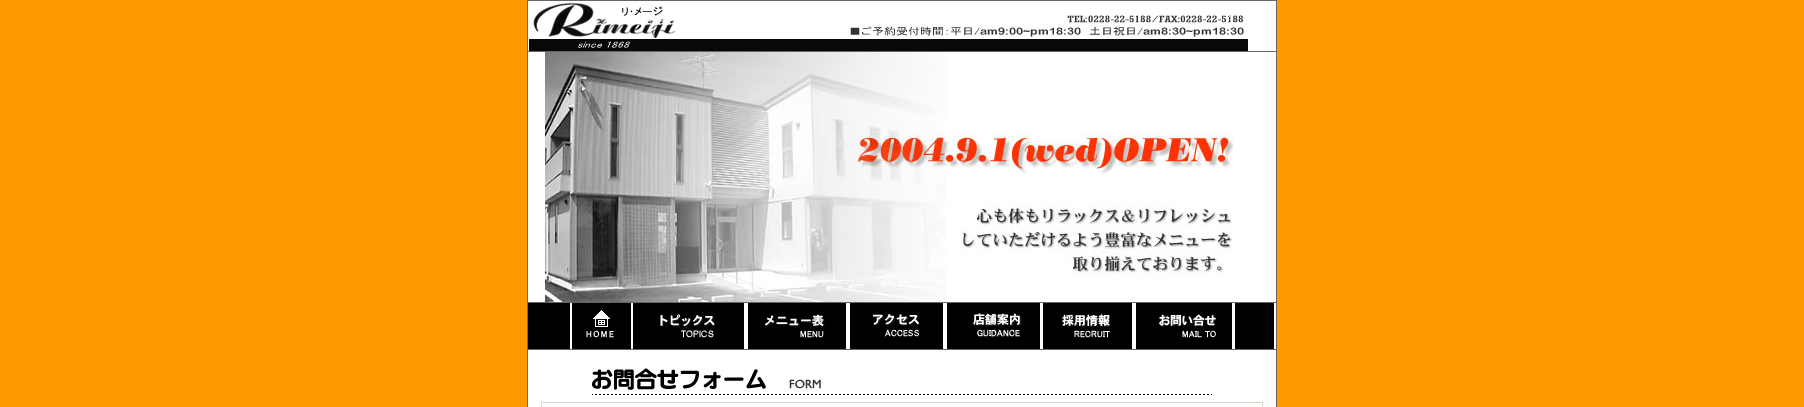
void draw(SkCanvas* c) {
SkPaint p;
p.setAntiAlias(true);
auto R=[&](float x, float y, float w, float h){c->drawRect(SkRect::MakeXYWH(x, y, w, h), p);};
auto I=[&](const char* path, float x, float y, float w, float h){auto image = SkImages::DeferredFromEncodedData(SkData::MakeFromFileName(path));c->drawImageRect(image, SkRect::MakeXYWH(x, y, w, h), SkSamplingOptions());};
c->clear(0xffff9900);
p.setColor(0xff666666);
R(527,0,750,407);
p.setColor(0xffffffff);
R(528,1,748,50);
I("1.png",529,2,719,49);
R(528,52,748,250);
I("2.png",545,52,688,250);
R(570,303,706,46);
p.setColor(0xff000000);
R(528,303,42,46);
I("3.png",572,303,59,46);
I("4.png",633,303,111,46);
I("5.png",748,303,98,46);
I("6.png",850,303,93,46);
I("7.png",947,303,93,46);
I("8.png",1043,303,89,46);
I("9.png",1136,303,96,46);
R(1235,303,39,46);
p.setColor(0xffffffff);
R(528,350,748,57);
I("10.png",592,368,620,27);
p.setColor(0xffddd5cc);
R(541,402,722,5);
p.setColor(0xffffffff);
R(542,403,720,4);
}
